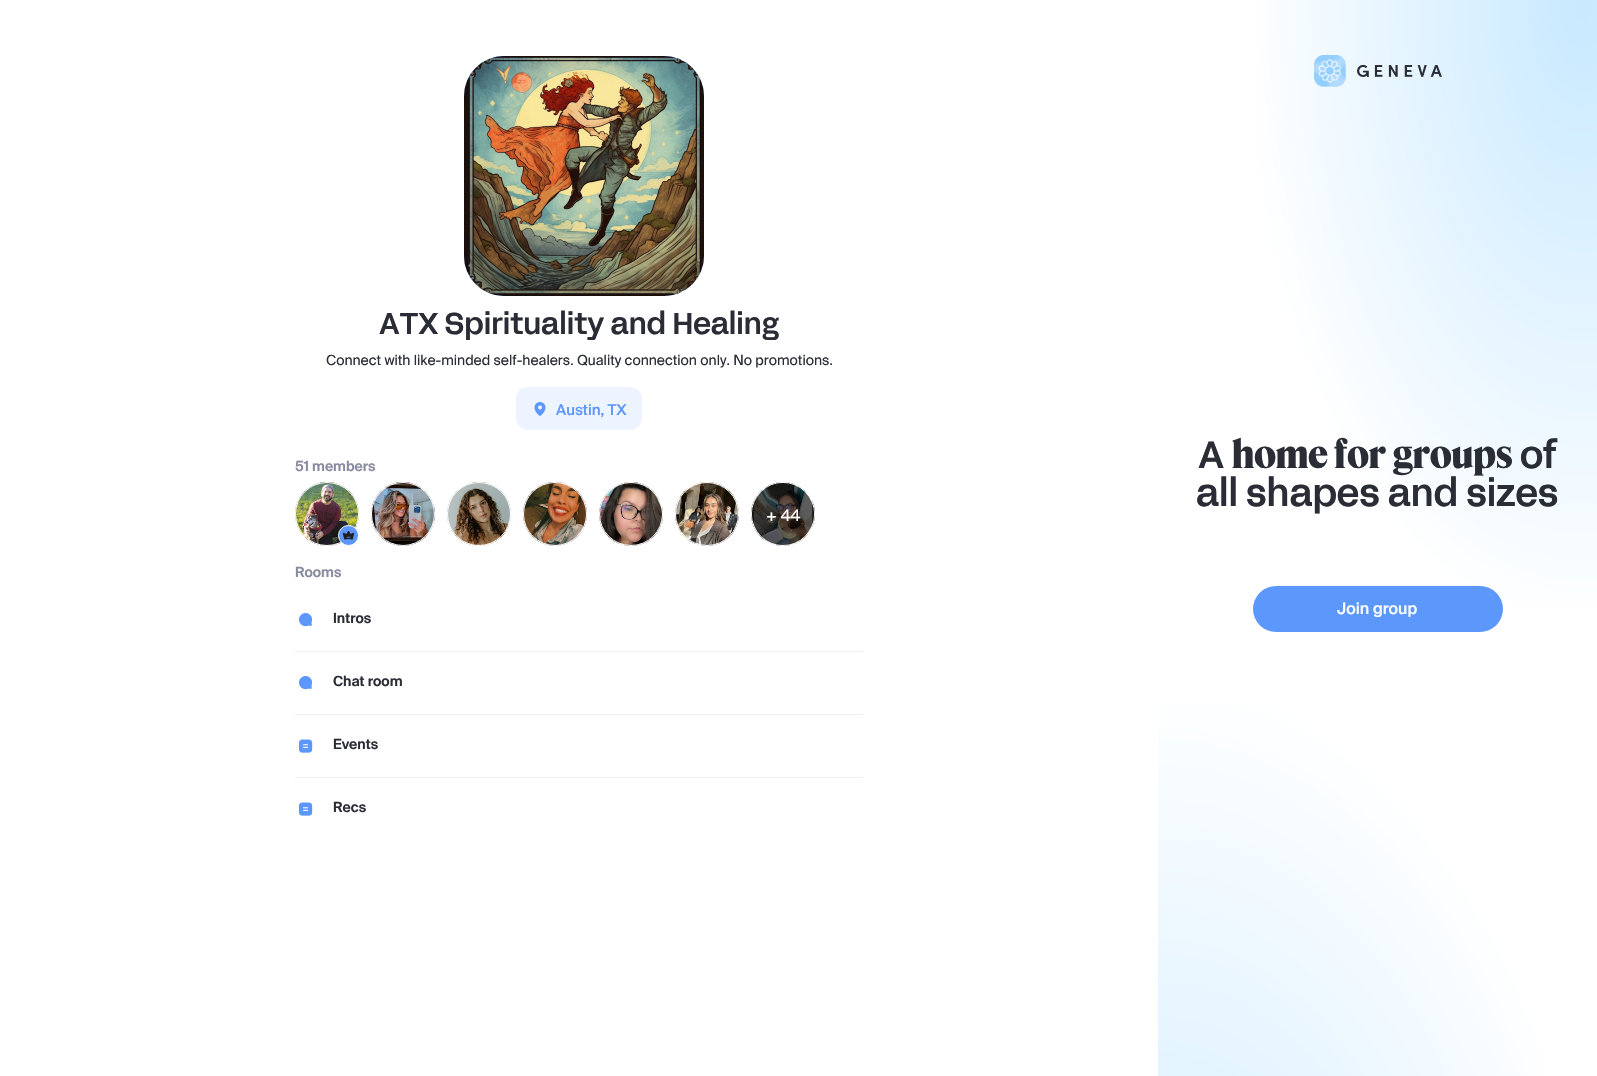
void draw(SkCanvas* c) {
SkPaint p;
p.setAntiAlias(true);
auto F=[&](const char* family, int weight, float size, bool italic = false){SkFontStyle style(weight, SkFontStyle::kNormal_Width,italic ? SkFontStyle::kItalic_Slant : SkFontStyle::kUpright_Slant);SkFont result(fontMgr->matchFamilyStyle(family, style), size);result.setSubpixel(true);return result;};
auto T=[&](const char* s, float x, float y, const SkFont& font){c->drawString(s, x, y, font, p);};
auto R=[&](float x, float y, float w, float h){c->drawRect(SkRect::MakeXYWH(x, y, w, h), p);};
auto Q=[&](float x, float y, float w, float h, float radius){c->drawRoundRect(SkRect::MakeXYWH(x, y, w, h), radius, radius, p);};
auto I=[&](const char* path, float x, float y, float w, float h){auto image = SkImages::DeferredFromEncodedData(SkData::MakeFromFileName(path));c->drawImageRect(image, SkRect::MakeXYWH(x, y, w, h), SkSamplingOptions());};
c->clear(0xffffffff);
p.setColor(0xff5c97fc);
Q(464,56,240,240,40);
I("1.png",464,56,240,240);
auto f1 = F("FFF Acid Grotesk",500,30);
p.setColor(0xff2a2d35);
T("ATX Spirituality and Healing",379,334,f1);
auto f2 = F("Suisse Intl",400,14);
T("Connect with like-minded self-healers. Quality connection only. No promotions.",326,365,f2);
p.setColor(0xffeef4ff);
Q(516,387,126,43,12);
I("2.png",534,402,12,14);
auto f3 = F("Suisse Intl",500,15);
p.setColor(0xff5c97fc);
T("Austin, TX",556,415,f3);
auto f4 = F("Suisse Intl",600,14);
p.setColor(0xff888aa0);
T("51 members",295,471,f4);
I("3.png",295,482,64,64);
p.setStroke(true);
p.setStrokeWidth(1);
p.setColor(0xffffffff);
c->drawCircle(327,514,31.5,p);
p.setStroke(false);
p.setColor(0xff5c97fc);
c->drawCircle(348.5,535.5,10,p);
p.setStroke(true);
p.setColor(0xffffffff);
c->drawCircle(348.5,535.5,10,p);
I("4.png",342,531,13,9);
I("5.png",371,482,64,64);
c->drawCircle(403,514,31.5,p);
I("6.png",447,482,64,64);
c->drawCircle(479,514,31.5,p);
I("7.png",523,482,64,64);
c->drawCircle(555,514,31.5,p);
I("8.png",599,482,64,64);
c->drawCircle(631,514,31.5,p);
I("9.png",675,482,64,64);
c->drawCircle(707,514,31.5,p);
I("10.png",751,482,64,64);
c->drawCircle(783,514,31.5,p);
p.setStroke(false);
p.setColor(0x99000000);
c->drawCircle(783,514,31,p);
auto f5 = F("Suisse Intl",400,16);
p.setColor(0xffffffff);
T("+ 44",766,521,f5);
p.setColor(0xff888aa0);
T("Rooms",295,577,f4);
p.setColor(0xffeeeff5);
R(295,651,568,1);
I("11.png",299,613,14,14);
p.setColor(0xff2a2d35);
T("Intros",333,623,f4);
p.setColor(0xffeeeff5);
R(295,714,568,1);
I("11.png",299,676,14,14);
p.setColor(0xff2a2d35);
T("Chat room",333,686,f4);
p.setColor(0xffeeeff5);
R(295,777,568,1);
I("12.png",299,739,14,14);
p.setColor(0xff2a2d35);
T("Events",333,749,f4);
I("12.png",299,802,14,14);
T("Recs",333,812,f4);
{
const SkColor colors[] = {0xffc8e9ff,0xffffffff};
const float stops[] = {0,1};
SkMatrix m = SkMatrix::Translate(1583,6).preScale(343,627);
p.setShader(SkGradientShader::MakeRadial({0, 0}, 1, colors, stops, 2, SkTileMode::kClamp, 0, &m));
p.setAlpha(255);
}
R(1256,0,341,604);
I("13.png",1314,55,32,32);
I("14.png",1357,64,85,13);
auto f6 = F("FFF Acid Grotesk",500,38);
p.setShader(nullptr);
p.setColor(0xff2a2d35);
T("A",1198,468,f6);
auto f7 = F("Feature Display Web",800,38);
T("home for groups",1232,468,f7);
T("of",1520,468,f6);
T("all shapes and sizes",1196,506,f6);
p.setColor(0xff5c97fc);
Q(1253,586,250,46,23);
auto f8 = F("Suisse Intl",500,16);
p.setColor(0xffffffff);
T("Join group",1337,614,f8);
{
const SkColor colors[] = {0xffc8e9ff,0x00c8e9ff};
const float stops[] = {0,1};
SkMatrix m = SkMatrix::Translate(1158,1462).preScale(464,787);
p.setShader(SkGradientShader::MakeRadial({0, 0}, 1, colors, stops, 2, SkTileMode::kClamp, 0, &m));
p.setAlpha(255);
}
R(1158,704,384,372);
}
